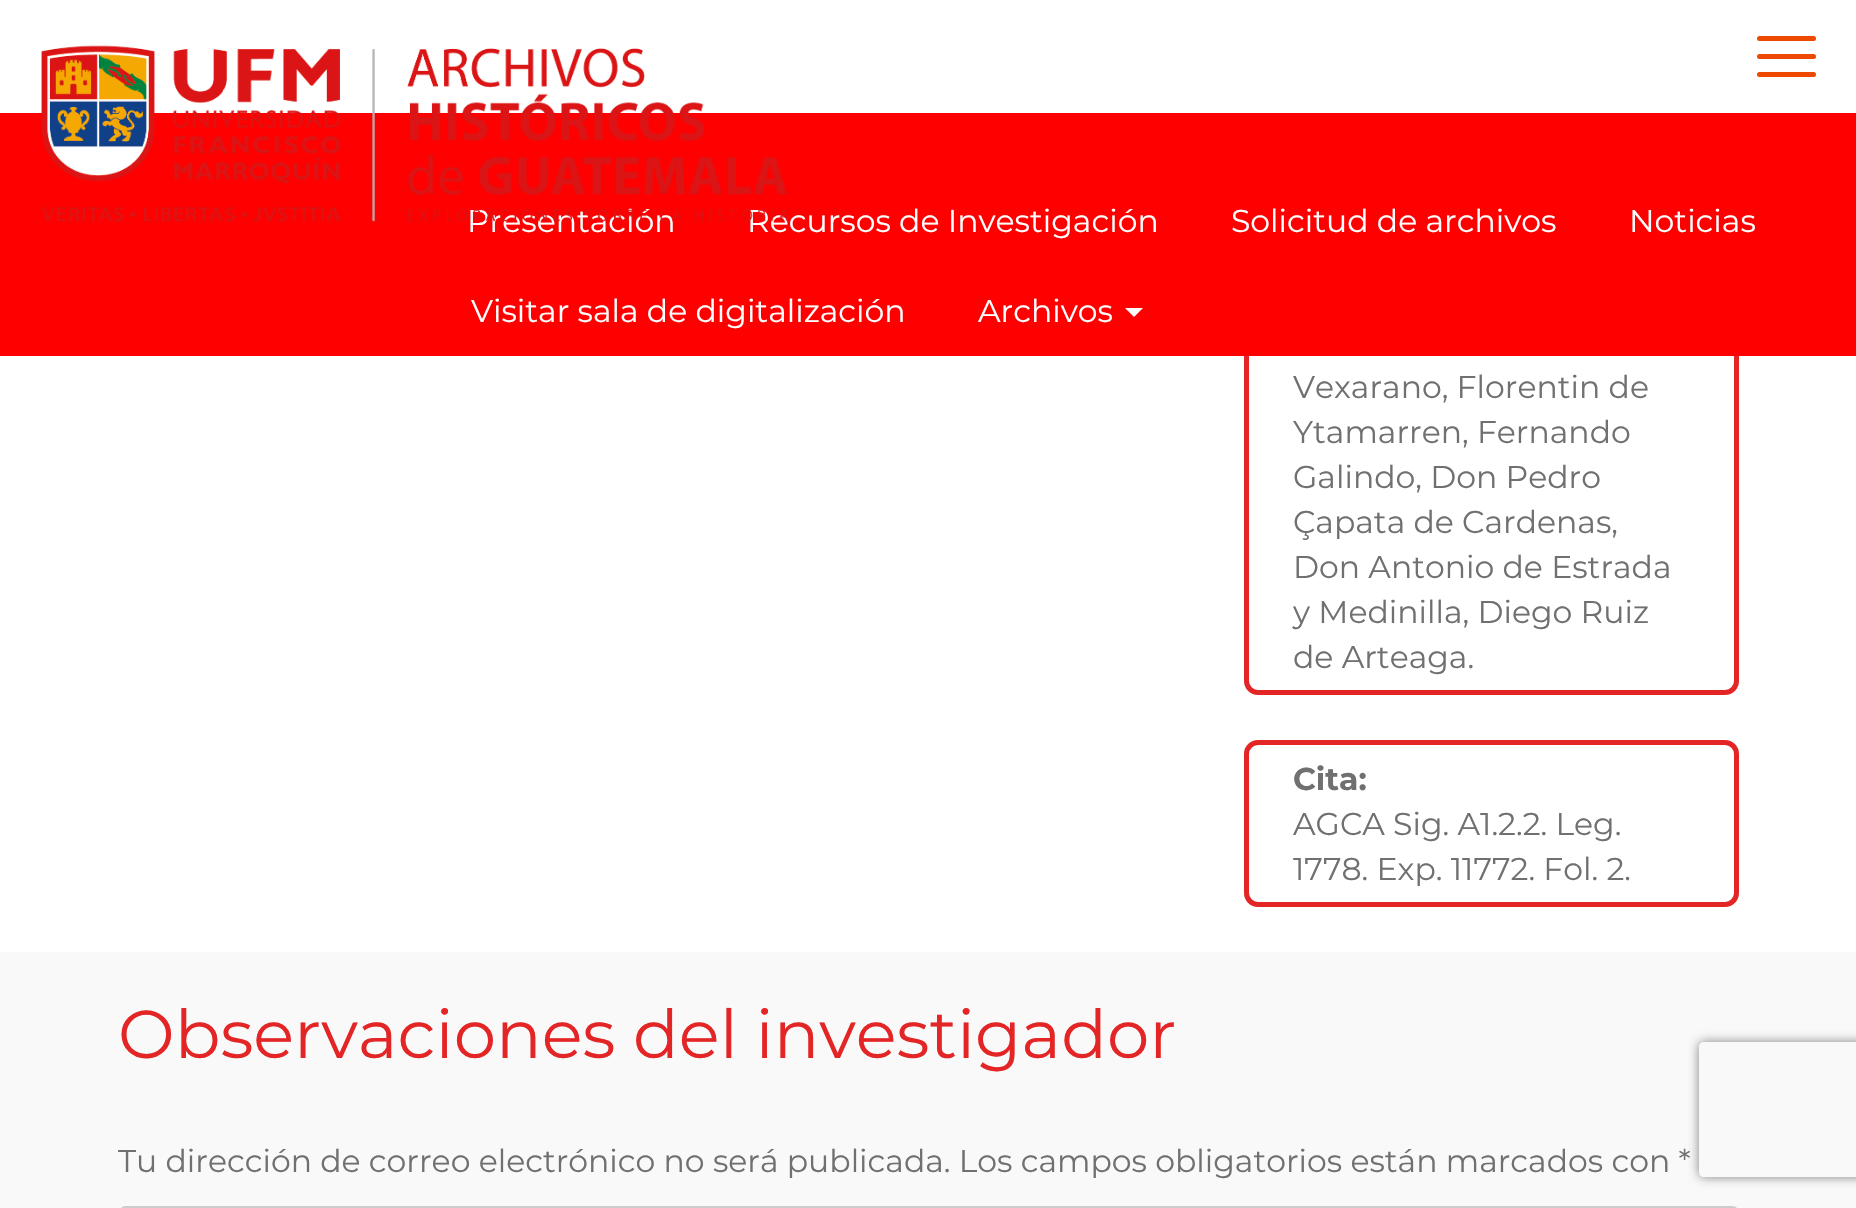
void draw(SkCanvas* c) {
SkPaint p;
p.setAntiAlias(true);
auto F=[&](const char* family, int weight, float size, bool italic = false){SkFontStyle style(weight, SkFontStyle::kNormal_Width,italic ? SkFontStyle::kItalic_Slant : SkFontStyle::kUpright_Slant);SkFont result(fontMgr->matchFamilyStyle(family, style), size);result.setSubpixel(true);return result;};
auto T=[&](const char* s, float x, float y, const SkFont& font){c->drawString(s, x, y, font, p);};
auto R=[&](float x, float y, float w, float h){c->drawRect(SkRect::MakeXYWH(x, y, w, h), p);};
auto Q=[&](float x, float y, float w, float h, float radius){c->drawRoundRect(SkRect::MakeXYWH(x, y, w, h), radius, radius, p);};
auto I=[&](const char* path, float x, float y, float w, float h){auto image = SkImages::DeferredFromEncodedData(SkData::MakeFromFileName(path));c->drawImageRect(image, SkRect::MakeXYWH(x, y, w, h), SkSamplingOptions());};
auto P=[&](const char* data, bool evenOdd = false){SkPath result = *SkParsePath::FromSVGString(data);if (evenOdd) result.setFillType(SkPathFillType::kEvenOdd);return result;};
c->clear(0xffffffff);
p.setStroke(true);
p.setStrokeWidth(5);
p.setColor(0xffe32526);
c->drawRoundRect(SkRect::MakeXYWH(1246.5,-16.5,490,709),11.5,11.5,p);
p.setStroke(false);
p.setColor(0xffffffff);
R(1244,0,495,113);
p.setColor(0xffff0000);
R(0,113,1856,243);
auto f1 = F("Montserrat",400,31.5);
p.setColor(0xffffffff);
T("Presentación",467,232,f1);
T("Recursos de Investigación",747,232,f1);
I("1.png",41,45,748,177);
p.setColor(0xffee4900);
Q(1757,54,59,5,2.5);
Q(1757,36,59,5,2.5);
Q(1757,72,59,5,2.5);
p.setColor(0xffffffff);
T("Solicitud de archivos",1231,232,f1);
T("Noticias",1629,232,f1);
T("Visitar sala de digitalización",471,322,f1);
T("Archivos",978,322,f1);
c->drawPath(P("M1125 308h18l-9 9z"),p);
p.setColor(0xff707070);
T("Vexarano, Florentin de",1293,398,f1);
T("Ytamarren, Fernando",1293,443,f1);
T("Galindo, Don Pedro",1293,488,f1);
T("Çapata de Cardenas,",1293,533,f1);
T("Don Antonio de Estrada",1293,578,f1);
T("y Medinilla, Diego Ruiz",1293,623,f1);
T("de Arteaga.",1293,668,f1);
p.setStroke(true);
p.setColor(0xffe32526);
c->drawRoundRect(SkRect::MakeXYWH(1246.5,742.5,490,162),11.5,11.5,p);
auto f2 = F("Montserrat",700,31.5);
p.setStroke(false);
p.setColor(0xff707070);
T("Cita:",1293,790,f2);
T("AGCA Sig. A1.2.2. Leg.",1293,835,f1);
T("1778. Exp. 11772. Fol. 2.",1293,880,f1);
p.setColor(0xfff9f9f9);
R(0,952,1856,256);
auto f3 = F("Montserrat",400,67.5);
p.setColor(0xffe32526);
T("Observaciones del investigador",118,1058,f3);
p.setColor(0xff707070);
T("Tu dirección de correo electrónico no será publicada. Los campos obligatorios están marcados con *",118,1172,f1);
p.setStroke(true);
p.setStrokeWidth(2);
p.setColor(0xffcccccc);
c->drawRoundRect(SkRect::MakeXYWH(120,1207,1618,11),8,8,p);
c->save();
c->clipPath(P("M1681 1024h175v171h-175zm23 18h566c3 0 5 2 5 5v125c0 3-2 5-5 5h-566c-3 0-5-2-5-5v-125c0-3 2-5 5-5z",true),true);
p.setStroke(false);
p.setColor(0xff808080);
p.setMaskFilter(SkMaskFilter::MakeBlur(kNormal_SkBlurStyle, 5.5));
c->drawRoundRect(SkRect::MakeXYWH(1699,1042,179,135),5,5,p);
p.setMaskFilter(nullptr);
c->restore();
}
